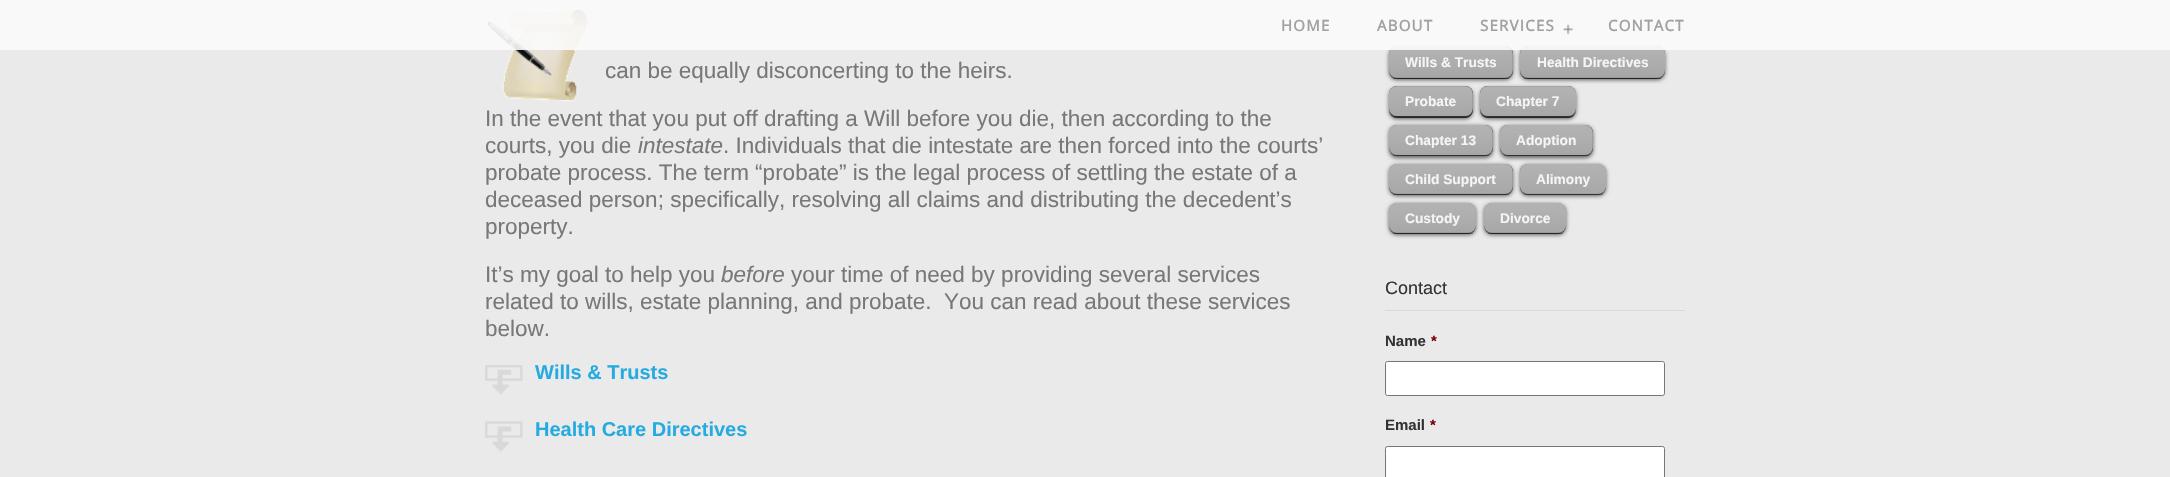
void draw(SkCanvas* c) {
SkPaint p;
p.setAntiAlias(true);
auto F=[&](const char* family, int weight, float size, bool italic = false){SkFontStyle style(weight, SkFontStyle::kNormal_Width,italic ? SkFontStyle::kItalic_Slant : SkFontStyle::kUpright_Slant);SkFont result(fontMgr->matchFamilyStyle(family, style), size);result.setSubpixel(true);return result;};
auto T=[&](const char* s, float x, float y, const SkFont& font){c->drawString(s, x, y, font, p);};
auto L=[&](const char* s, float x, float y, const SkFont& font, const SkPaint& ink, float letter, float word){std::vector<SkGlyphID> glyphs(font.countText(s, strlen(s), SkTextEncoding::kUTF8));std::vector<float> xs(glyphs.size());font.textToGlyphs(s, strlen(s), SkTextEncoding::kUTF8, glyphs);font.getXPos(glyphs, xs, x);float extra = 0;for (size_t i = 0; i < glyphs.size(); i++) {xs[i] += extra;extra += letter + word * (glyphs[i] == font.unicharToGlyph(' '));}c->drawTextBlob(SkTextBlob::MakeFromPosHGlyphs(glyphs, xs, y, font), 0, 0, ink);};
auto R=[&](float x, float y, float w, float h){c->drawRect(SkRect::MakeXYWH(x, y, w, h), p);};
auto Q=[&](float x, float y, float w, float h, float radius){c->drawRoundRect(SkRect::MakeXYWH(x, y, w, h), radius, radius, p);};
auto I=[&](const char* path, float x, float y, float w, float h){auto image = SkImages::DeferredFromEncodedData(SkData::MakeFromFileName(path));c->drawImageRect(image, SkRect::MakeXYWH(x, y, w, h), SkSamplingOptions());};
c->clear(0xffeaeaea);
I("2.png",486,8,102,94);
p.setColor(0xffe5e5e5);
R(1385,31,300,3);
p.setColor(0x99000000);
p.setMaskFilter(SkMaskFilter::MakeBlur(kNormal_SkBlurStyle, 2));
c->drawRoundRect(SkRect::MakeXYWH(1389,48,124,32),8,8,p);
p.setMaskFilter(nullptr);
p.setColor(0xff222222);
Q(1389,46,124,33,8);
I("5.png",1389,46,124,33);
p.setColor(0xff999999);
Q(1389,46,124,32,8);
I("6.png",1389,46,124,31);
p.setColor(0x99000000);
p.setMaskFilter(SkMaskFilter::MakeBlur(kNormal_SkBlurStyle, 2));
c->drawRoundRect(SkRect::MakeXYWH(1520,48,145,32),8,8,p);
p.setMaskFilter(nullptr);
p.setColor(0xff222222);
Q(1520,46,145,33,8);
I("7.png",1520,46,145,33);
p.setColor(0xff999999);
Q(1520,46,145,32,8);
I("8.png",1520,46,145,31);
p.setColor(0xe6fbfbfb);
R(0,0,2170,50);
auto f1 = F("Open Sans",700,15);
p.setColor(0xffa1a1a1);
L("HOME",1281,31,f1,p,1.25,0);
L("ABOUT",1377,31,f1,p,1.25,0);
L("SERVICES",1480,31,f1,p,1.25,0);
I("1.png",1563,24,11,11);
L("CONTACT",1608,31,f1,p,1.25,0);
auto f2 = F("Liberation Sans",400,22.5);
p.setColor(0xff787878);
T("can be equally disconcerting to the heirs.",605,78,f2);
T("In the event that you put off drafting a Will before you die, then according to the",485,126,f2);
T("courts, you die",485,153,f2);
auto f3 = F("Liberation Sans",400,22.5,true);
T("intestate",638,153,f3);
T(". Individuals that die intestate are then forced into the courts’",723,153,f2);
T("probate process. The term “probate” is the legal process of settling the estate of a",485,180,f2);
T("deceased person; specifically, resolving all claims and distributing the decedent’s",485,207,f2);
T("property.",485,234,f2);
T("It’s my goal to help you",485,282,f2);
T("before",721,282,f3);
T("your time of need by providing several services",791,282,f2);
T("related to wills, estate planning, and probate.  You can read about these services",485,309,f2);
T("below.",485,336,f2);
I("3.png",485,365,38,30);
auto f4 = F("Liberation Sans",700,20);
p.setColor(0xff26abe0);
T("Wills & Trusts",535,379,f4);
I("4.png",485,421,38,31);
T("Health Care Directives",535,436,f4);
p.setColor(0x40000000);
R(1393,78,116,1);
auto f5 = F("Liberation Sans",700,13.75);
p.setColor(0xfff5f5f5);
T("Wills & Trusts",1405,67,f5);
p.setColor(0x40000000);
R(1524,78,137,1);
p.setColor(0xfff5f5f5);
T("Health Directives",1537,67,f5);
p.setColor(0x99000000);
p.setMaskFilter(SkMaskFilter::MakeBlur(kNormal_SkBlurStyle, 2));
c->drawRoundRect(SkRect::MakeXYWH(1389,88,84,31),8,8,p);
p.setMaskFilter(nullptr);
p.setColor(0xff222222);
Q(1389,86,84,32,8);
I("9.png",1389,86,84,32);
p.setColor(0x40000000);
R(1393,116,76,1);
p.setColor(0xff999999);
Q(1389,86,84,30,8);
I("10.png",1389,86,84,30);
p.setColor(0xfff5f5f5);
T("Probate",1405,106,f5);
p.setColor(0x99000000);
p.setMaskFilter(SkMaskFilter::MakeBlur(kNormal_SkBlurStyle, 2));
c->drawRoundRect(SkRect::MakeXYWH(1480,88,96,31),8,8,p);
p.setMaskFilter(nullptr);
p.setColor(0xff222222);
Q(1480,86,96,32,8);
I("11.png",1480,86,96,32);
p.setColor(0x40000000);
R(1484,116,89,1);
p.setColor(0xff999999);
Q(1480,86,96,30,8);
I("12.png",1480,86,96,30);
p.setColor(0xfff5f5f5);
T("Chapter 7",1496,106,f5);
p.setColor(0x99000000);
p.setMaskFilter(SkMaskFilter::MakeBlur(kNormal_SkBlurStyle, 2));
c->drawRoundRect(SkRect::MakeXYWH(1389,126,104,32),8,8,p);
p.setMaskFilter(nullptr);
p.setColor(0xff222222);
Q(1389,125,104,31,8);
I("13.png",1389,125,104,31);
p.setColor(0x40000000);
R(1393,155,96,1);
p.setColor(0xff999999);
Q(1389,125,104,30,8);
I("14.png",1389,125,104,30);
p.setColor(0xfff5f5f5);
T("Chapter 13",1405,145,f5);
p.setColor(0x99000000);
p.setMaskFilter(SkMaskFilter::MakeBlur(kNormal_SkBlurStyle, 2));
c->drawRoundRect(SkRect::MakeXYWH(1500,126,93,32),8,8,p);
p.setMaskFilter(nullptr);
p.setColor(0xff222222);
Q(1500,125,93,31,8);
I("15.png",1500,125,93,31);
p.setColor(0x40000000);
R(1504,155,85,1);
p.setColor(0xff999999);
Q(1500,125,93,30,8);
I("16.png",1500,125,93,30);
p.setColor(0xfff5f5f5);
T("Adoption",1516,145,f5);
p.setColor(0x99000000);
p.setMaskFilter(SkMaskFilter::MakeBlur(kNormal_SkBlurStyle, 2));
c->drawRoundRect(SkRect::MakeXYWH(1389,165,124,31),8,8,p);
p.setMaskFilter(nullptr);
p.setColor(0xff222222);
Q(1389,164,124,31,8);
I("17.png",1389,164,124,31);
p.setColor(0x40000000);
R(1393,194,116,1);
p.setColor(0xff999999);
Q(1389,164,124,30,8);
I("18.png",1389,164,124,30);
p.setColor(0xfff5f5f5);
T("Child Support",1405,184,f5);
p.setColor(0x99000000);
p.setMaskFilter(SkMaskFilter::MakeBlur(kNormal_SkBlurStyle, 2));
c->drawRoundRect(SkRect::MakeXYWH(1520,165,86,31),8,8,p);
p.setMaskFilter(nullptr);
p.setColor(0xff222222);
Q(1520,164,86,31,8);
I("19.png",1520,164,86,31);
p.setColor(0x40000000);
R(1524,194,79,1);
p.setColor(0xff999999);
Q(1520,164,86,30,8);
I("20.png",1520,164,86,30);
p.setColor(0xfff5f5f5);
T("Alimony",1536,184,f5);
p.setColor(0x99000000);
p.setMaskFilter(SkMaskFilter::MakeBlur(kNormal_SkBlurStyle, 2));
c->drawRoundRect(SkRect::MakeXYWH(1389,204,87,31),8,8,p);
p.setMaskFilter(nullptr);
p.setColor(0xff222222);
Q(1389,203,87,31,8);
I("21.png",1389,203,87,31);
p.setColor(0x40000000);
R(1393,233,80,1);
p.setColor(0xff999999);
Q(1389,203,87,30,8);
I("22.png",1389,203,87,29);
p.setColor(0xfff5f5f5);
T("Custody",1405,223,f5);
p.setColor(0x99000000);
p.setMaskFilter(SkMaskFilter::MakeBlur(kNormal_SkBlurStyle, 2));
c->drawRoundRect(SkRect::MakeXYWH(1484,204,82,31),8,8,p);
p.setMaskFilter(nullptr);
p.setColor(0xff222222);
Q(1484,203,82,31,8);
I("23.png",1484,203,82,31);
p.setColor(0x40000000);
R(1488,233,75,1);
p.setColor(0xff999999);
Q(1484,203,82,30,8);
I("24.png",1484,203,82,29);
p.setColor(0xfff5f5f5);
T("Divorce",1500,223,f5);
p.setColor(0xffdadada);
R(1385,310,300,1);
auto f6 = F("Liberation Sans",400,18);
p.setColor(0xff333333);
T("Contact",1385,294,f6);
auto f7 = F("Liberation Sans",700,15);
T("Name",1385,346,f7);
p.setColor(0xff790000);
T("*",1431,346,f7);
p.setColor(0xffffffff);
c->drawRoundRect(SkRect::MakeXYWH(1385.5,361.5,279,34),2,2,p);
p.setStroke(true);
p.setStrokeWidth(1);
p.setColor(0xff767676);
c->drawRoundRect(SkRect::MakeXYWH(1385.5,361.5,279,34),2,2,p);
p.setStroke(false);
p.setColor(0xff333333);
T("Email",1385,430,f7);
p.setColor(0xff790000);
T("*",1430,430,f7);
p.setColor(0xffffffff);
c->drawRoundRect(SkRect::MakeXYWH(1385.5,446.5,279,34),2,2,p);
p.setStroke(true);
p.setColor(0xff767676);
c->drawRoundRect(SkRect::MakeXYWH(1385.5,446.5,279,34),2,2,p);
}
